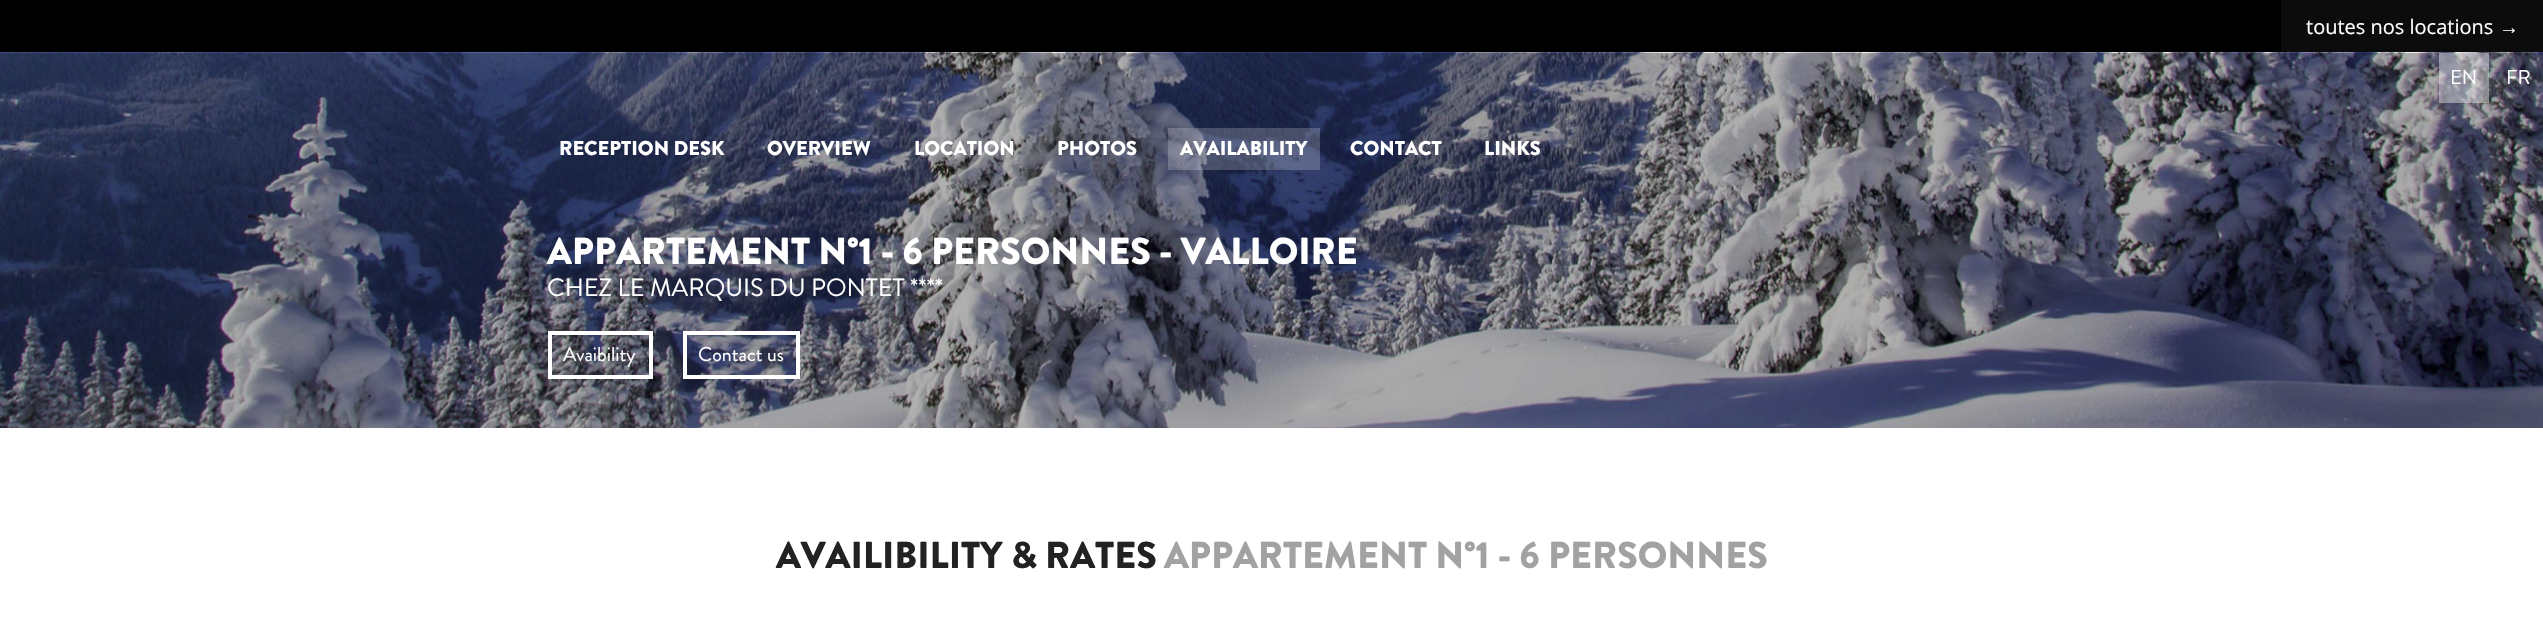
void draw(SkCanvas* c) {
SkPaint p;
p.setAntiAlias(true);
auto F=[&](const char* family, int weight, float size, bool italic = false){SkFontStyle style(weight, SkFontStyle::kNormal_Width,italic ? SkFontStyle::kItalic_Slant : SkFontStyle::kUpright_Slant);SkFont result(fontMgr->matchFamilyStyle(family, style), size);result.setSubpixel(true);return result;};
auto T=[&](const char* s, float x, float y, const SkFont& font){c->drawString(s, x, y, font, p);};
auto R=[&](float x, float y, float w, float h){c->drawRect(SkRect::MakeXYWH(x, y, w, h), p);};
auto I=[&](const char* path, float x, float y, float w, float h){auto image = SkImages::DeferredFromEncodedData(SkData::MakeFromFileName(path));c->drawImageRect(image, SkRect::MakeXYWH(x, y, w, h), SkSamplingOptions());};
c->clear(0xffffffff);
p.setColor(0xff000000);
R(0,0,2281,52);
p.setColor(0xff0c0c0c);
R(2281,0,262,52);
auto f1 = F("Open Sans",400,20);
p.setColor(0xffffffff);
T("toutes nos locations",2306,34,f1);
auto f2 = F("Liberation Sans",400,20);
T("→",2499,34,f2);
I("1.png",0,52,2543,376);
p.setColor(0x66ffffff);
R(2439,53,50,50);
auto f3 = F("Brandon Grotesque",400,20);
p.setColor(0xffffffff);
T("EN",2450,84,f3);
T("FR",2506,84,f3);
auto f4 = F("Brandon Grotesque",900,20);
T("RECEPTION DESK",559,155,f4);
T("OVERVIEW",767,155,f4);
T("LOCATION",914,155,f4);
T("PHOTOS",1057,155,f4);
p.setColor(0x33ffffff);
R(1168,128,152,42);
p.setColor(0xffffffff);
T("AVAILABILITY",1180,155,f4);
T("CONTACT",1350,155,f4);
T("LINKS",1484,155,f4);
auto f5 = F("Brandon Grotesque",900,37.5);
T("APPARTEMENT N°1 - 6 PERSONNES - VALLOIRE",547,264,f5);
auto f6 = F("Brandon Grotesque",400,25);
T("CHEZ LE MARQUIS DU PONTET ****",547,296,f6);
p.setStroke(true);
p.setStrokeWidth(4);
c->drawRect(SkRect::MakeXYWH(550,333,101,44),p);
p.setStroke(false);
T("Avaibility",563,361,f3);
p.setStroke(true);
c->drawRect(SkRect::MakeXYWH(685,333,113,44),p);
p.setStroke(false);
T("Contact us",698,361,f3);
p.setColor(0xff222222);
T("AVAILIBILITY & RATES",776,568,f5);
p.setColor(0xffa2a2a2);
T("APPARTEMENT N°1 - 6 PERSONNES",1164,568,f5);
}
